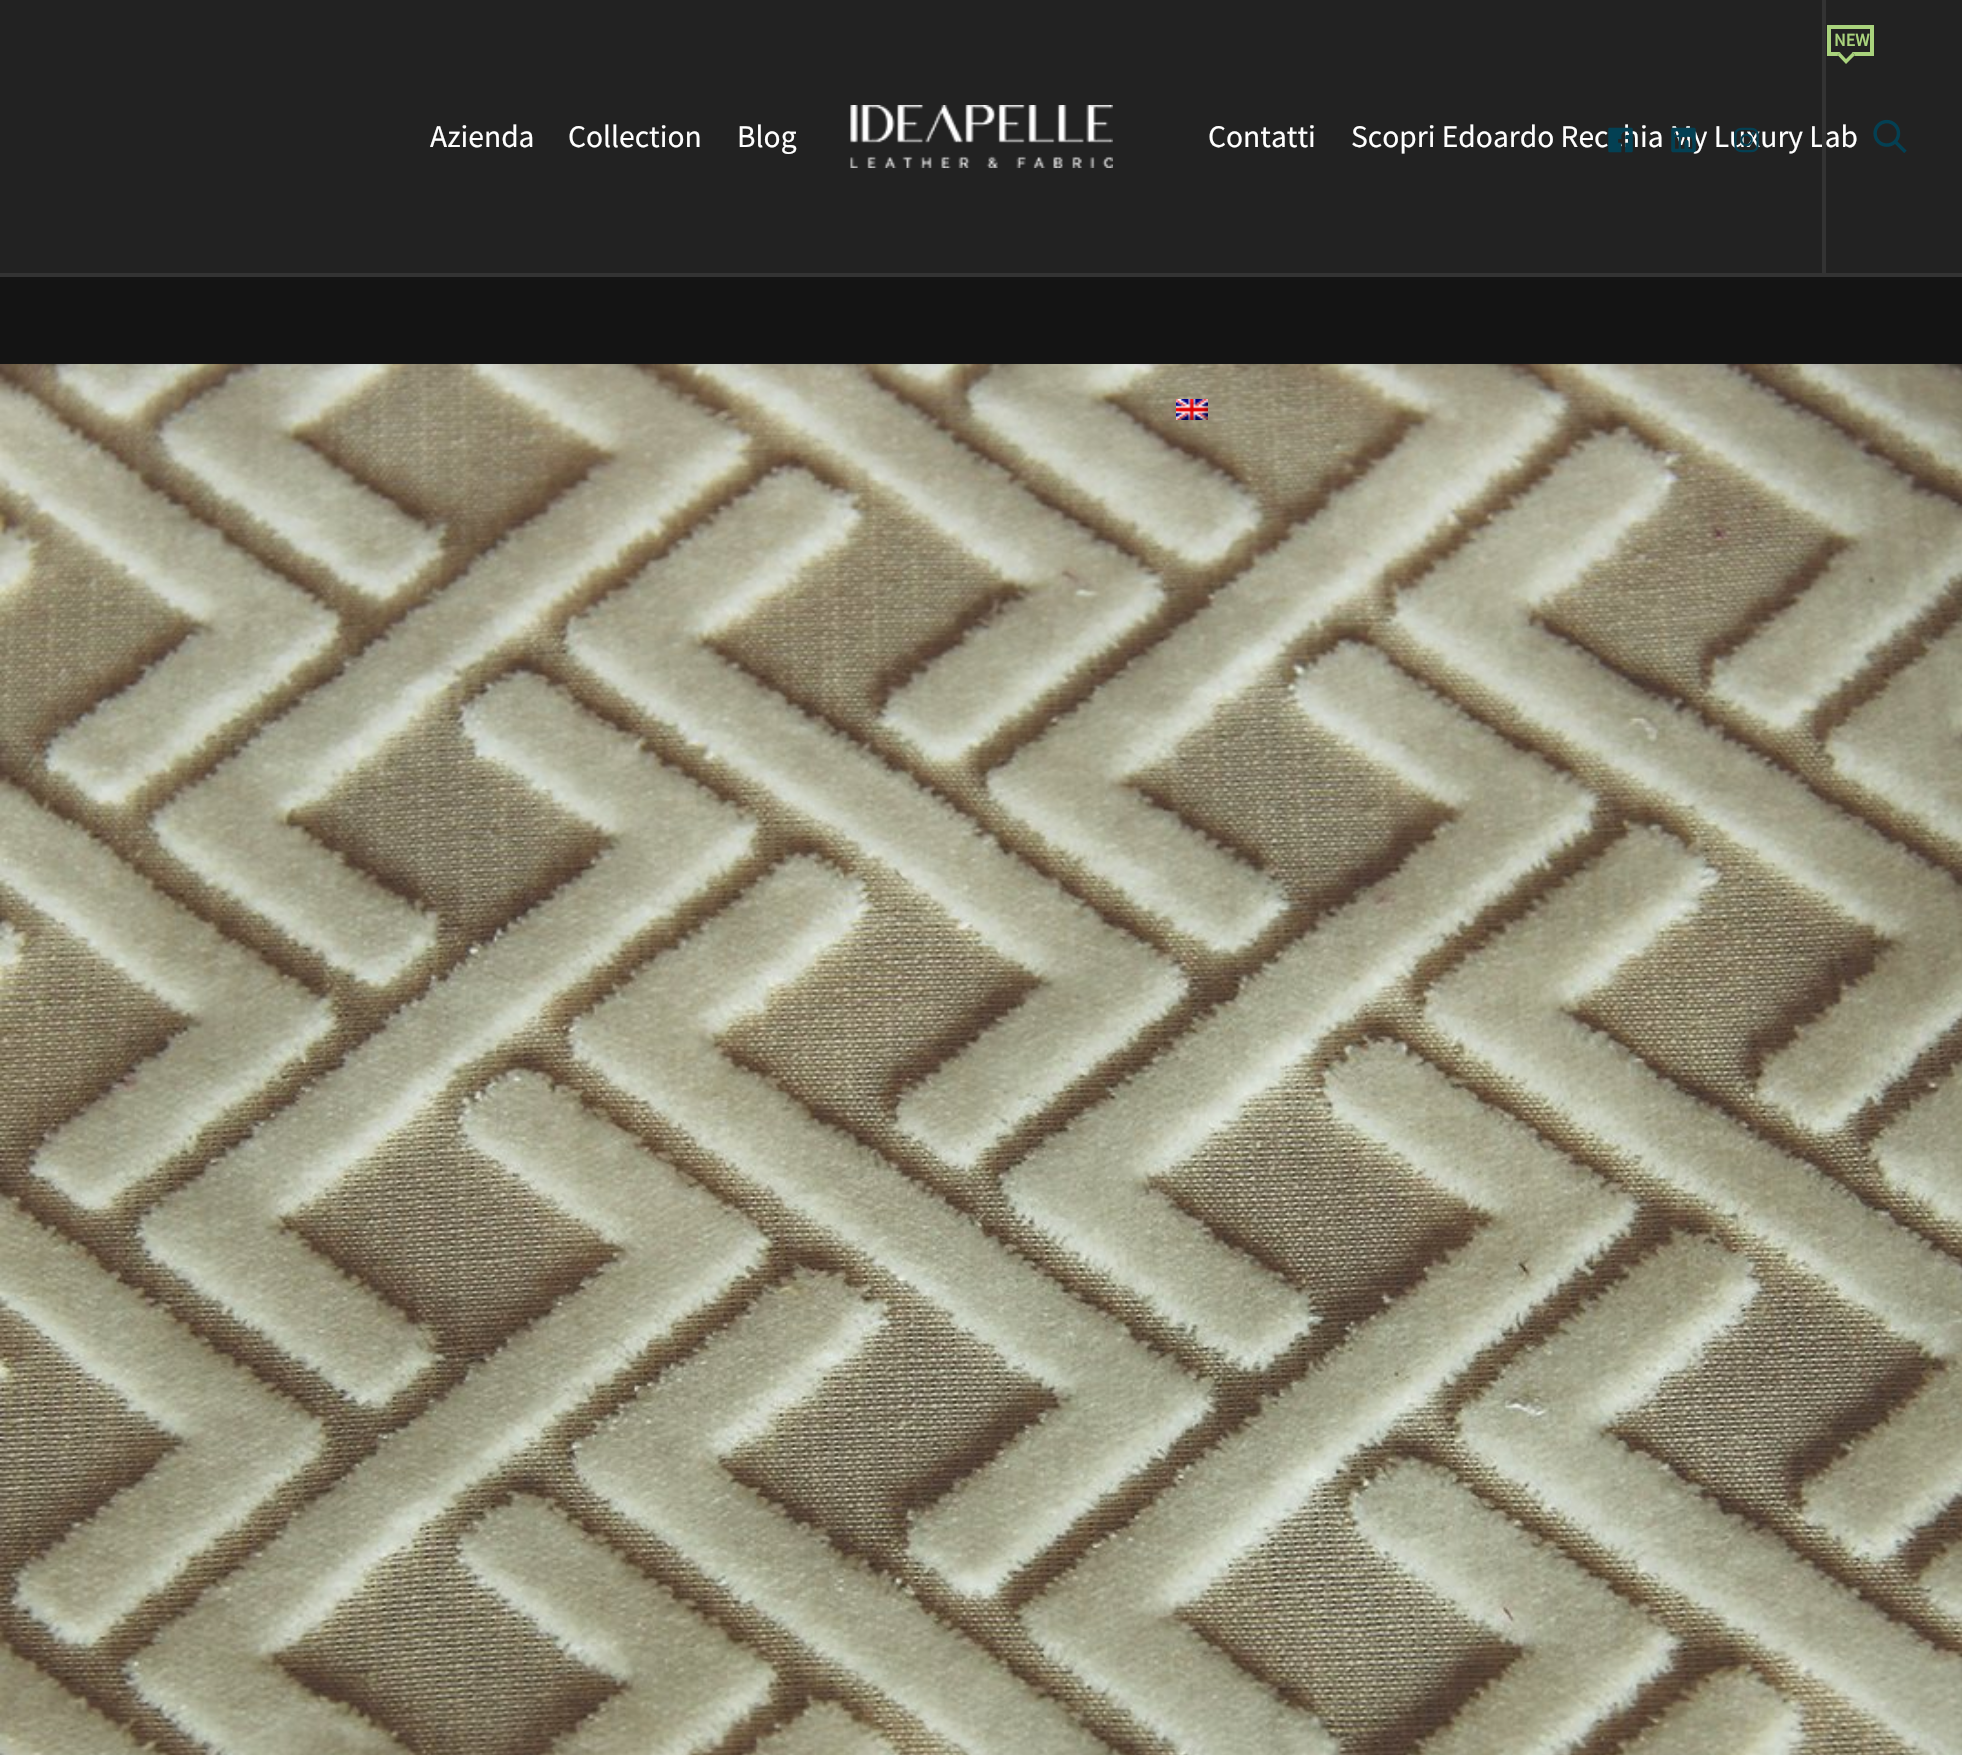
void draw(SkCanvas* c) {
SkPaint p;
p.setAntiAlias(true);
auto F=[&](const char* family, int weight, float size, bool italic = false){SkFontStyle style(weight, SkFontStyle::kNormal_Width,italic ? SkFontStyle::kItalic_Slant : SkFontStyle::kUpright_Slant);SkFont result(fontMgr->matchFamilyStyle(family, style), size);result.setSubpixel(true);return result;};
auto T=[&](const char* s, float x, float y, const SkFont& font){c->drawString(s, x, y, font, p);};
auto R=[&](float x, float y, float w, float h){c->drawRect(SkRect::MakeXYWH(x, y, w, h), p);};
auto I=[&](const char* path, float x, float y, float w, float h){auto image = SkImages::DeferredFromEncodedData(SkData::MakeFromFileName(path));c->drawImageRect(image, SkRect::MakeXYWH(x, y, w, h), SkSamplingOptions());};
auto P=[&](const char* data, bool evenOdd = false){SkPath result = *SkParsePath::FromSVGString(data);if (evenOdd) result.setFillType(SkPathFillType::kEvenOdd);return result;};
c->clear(0xff222222);
p.setColor(0xff333333);
R(0,273,1962,4);
auto f1 = F("Source Sans Pro",400,31.5);
p.setColor(0xffffffff);
T("Scopri Edoardo Recchia My Luxury Lab",1351,147,f1);
I("1.png",1608,127,25,26);
I("2.png",1671,127,25,26);
I("3.png",1734,127,25,26);
p.setColor(0xff333333);
R(1822,0,4,273);
I("4.png",1873,119,34,34);
p.setColor(0xffffffff);
T("Azienda",430,147,f1);
T("Collection",568,147,f1);
T("Blog",737,147,f1);
T("Contatti",1208,147,f1);
p.setStroke(true);
p.setStrokeWidth(4);
p.setColor(0xffa9d37c);
c->drawRect(SkRect::MakeXYWH(1829,27,43,27),p);
auto f2 = F("Source Sans Pro",700,18);
p.setStroke(false);
T("NEW",1834,46,f2);
p.setColor(0xff222222);
c->drawPath(P("M1846 64l-8.5-9l8.5-8.5l9 8.5z"),p);
p.setColor(0xffa9d37c);
c->drawPath(P("M1846 59l6.5-6.5l2.5 2.5l-9 9l-8.5-9l2.5-2.5z"),p);
I("7.png",0,364,1962,1391);
I("5.png",1176,399,32,21);
I("6.png",850,105,263,63);
p.setColor(0xff141414);
R(0,277,1962,87);
}
